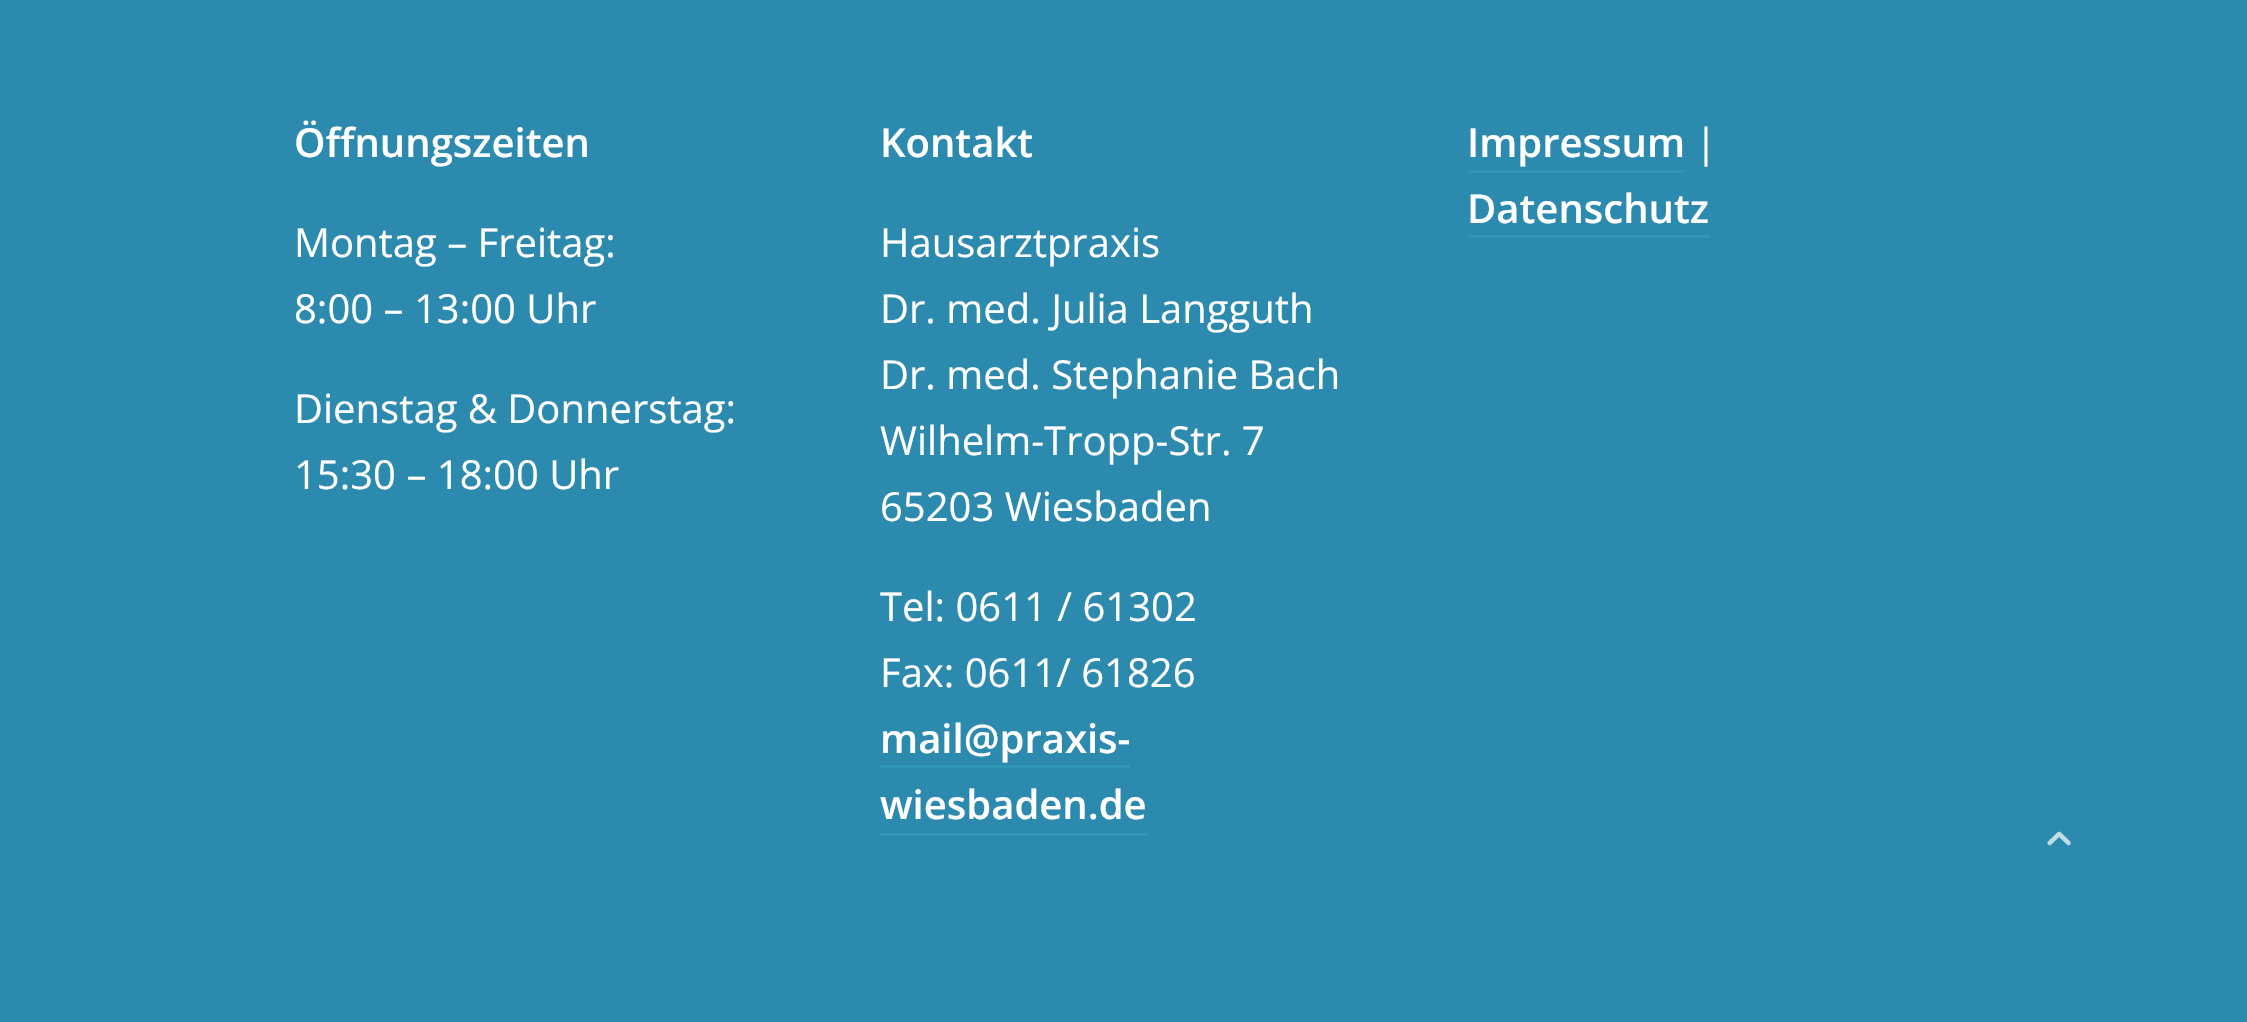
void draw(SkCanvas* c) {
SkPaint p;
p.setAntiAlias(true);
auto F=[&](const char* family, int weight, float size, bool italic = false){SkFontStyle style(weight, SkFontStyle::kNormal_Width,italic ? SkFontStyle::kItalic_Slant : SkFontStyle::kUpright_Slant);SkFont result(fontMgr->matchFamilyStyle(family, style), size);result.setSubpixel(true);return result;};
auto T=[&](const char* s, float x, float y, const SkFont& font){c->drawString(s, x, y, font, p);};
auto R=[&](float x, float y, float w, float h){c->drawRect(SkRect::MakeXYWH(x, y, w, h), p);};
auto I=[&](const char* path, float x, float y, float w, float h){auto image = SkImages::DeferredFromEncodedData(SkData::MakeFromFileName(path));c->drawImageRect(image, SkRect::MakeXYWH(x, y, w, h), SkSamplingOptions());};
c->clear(0xff2d8aaf);
auto f1 = F("Open Sans",600,40);
p.setColor(0xffffffff);
T("Öffnungszeiten",294,157,f1);
auto f2 = F("Open Sans",400,40);
T("Montag – Freitag:",294,257,f2);
T("8:00 – 13:00 Uhr",294,323,f2);
T("Dienstag & Donnerstag:",294,423,f2);
T("15:30 – 18:00 Uhr",294,489,f2);
T("Kontakt",880,157,f1);
T("Hausarztpraxis",880,257,f2);
T("Dr. med. Julia Langguth",880,323,f2);
T("Dr. med. Stephanie Bach",880,389,f2);
T("Wilhelm-Tropp-Str. 7",880,455,f2);
T("65203 Wiesbaden",880,521,f2);
T("Tel: 0611 / 61302",880,621,f2);
T("Fax: 0611/ 61826",880,687,f2);
T("mail@praxis-",880,753,f1);
p.setColor(0xff3196b5);
R(880,765,250,3);
p.setColor(0xffffffff);
T("wiesbaden.de",880,819,f1);
p.setColor(0xff3196b5);
R(880,833,268,3);
p.setColor(0xffffffff);
T("Impressum",1467,157,f1);
p.setColor(0xff3196b5);
R(1468,170,217,3);
p.setColor(0xffffffff);
T("|",1695,157,f2);
T("Datenschutz",1467,223,f1);
p.setColor(0xff3196b5);
R(1468,235,242,3);
I("1.png",2047,831,24,15);
}
